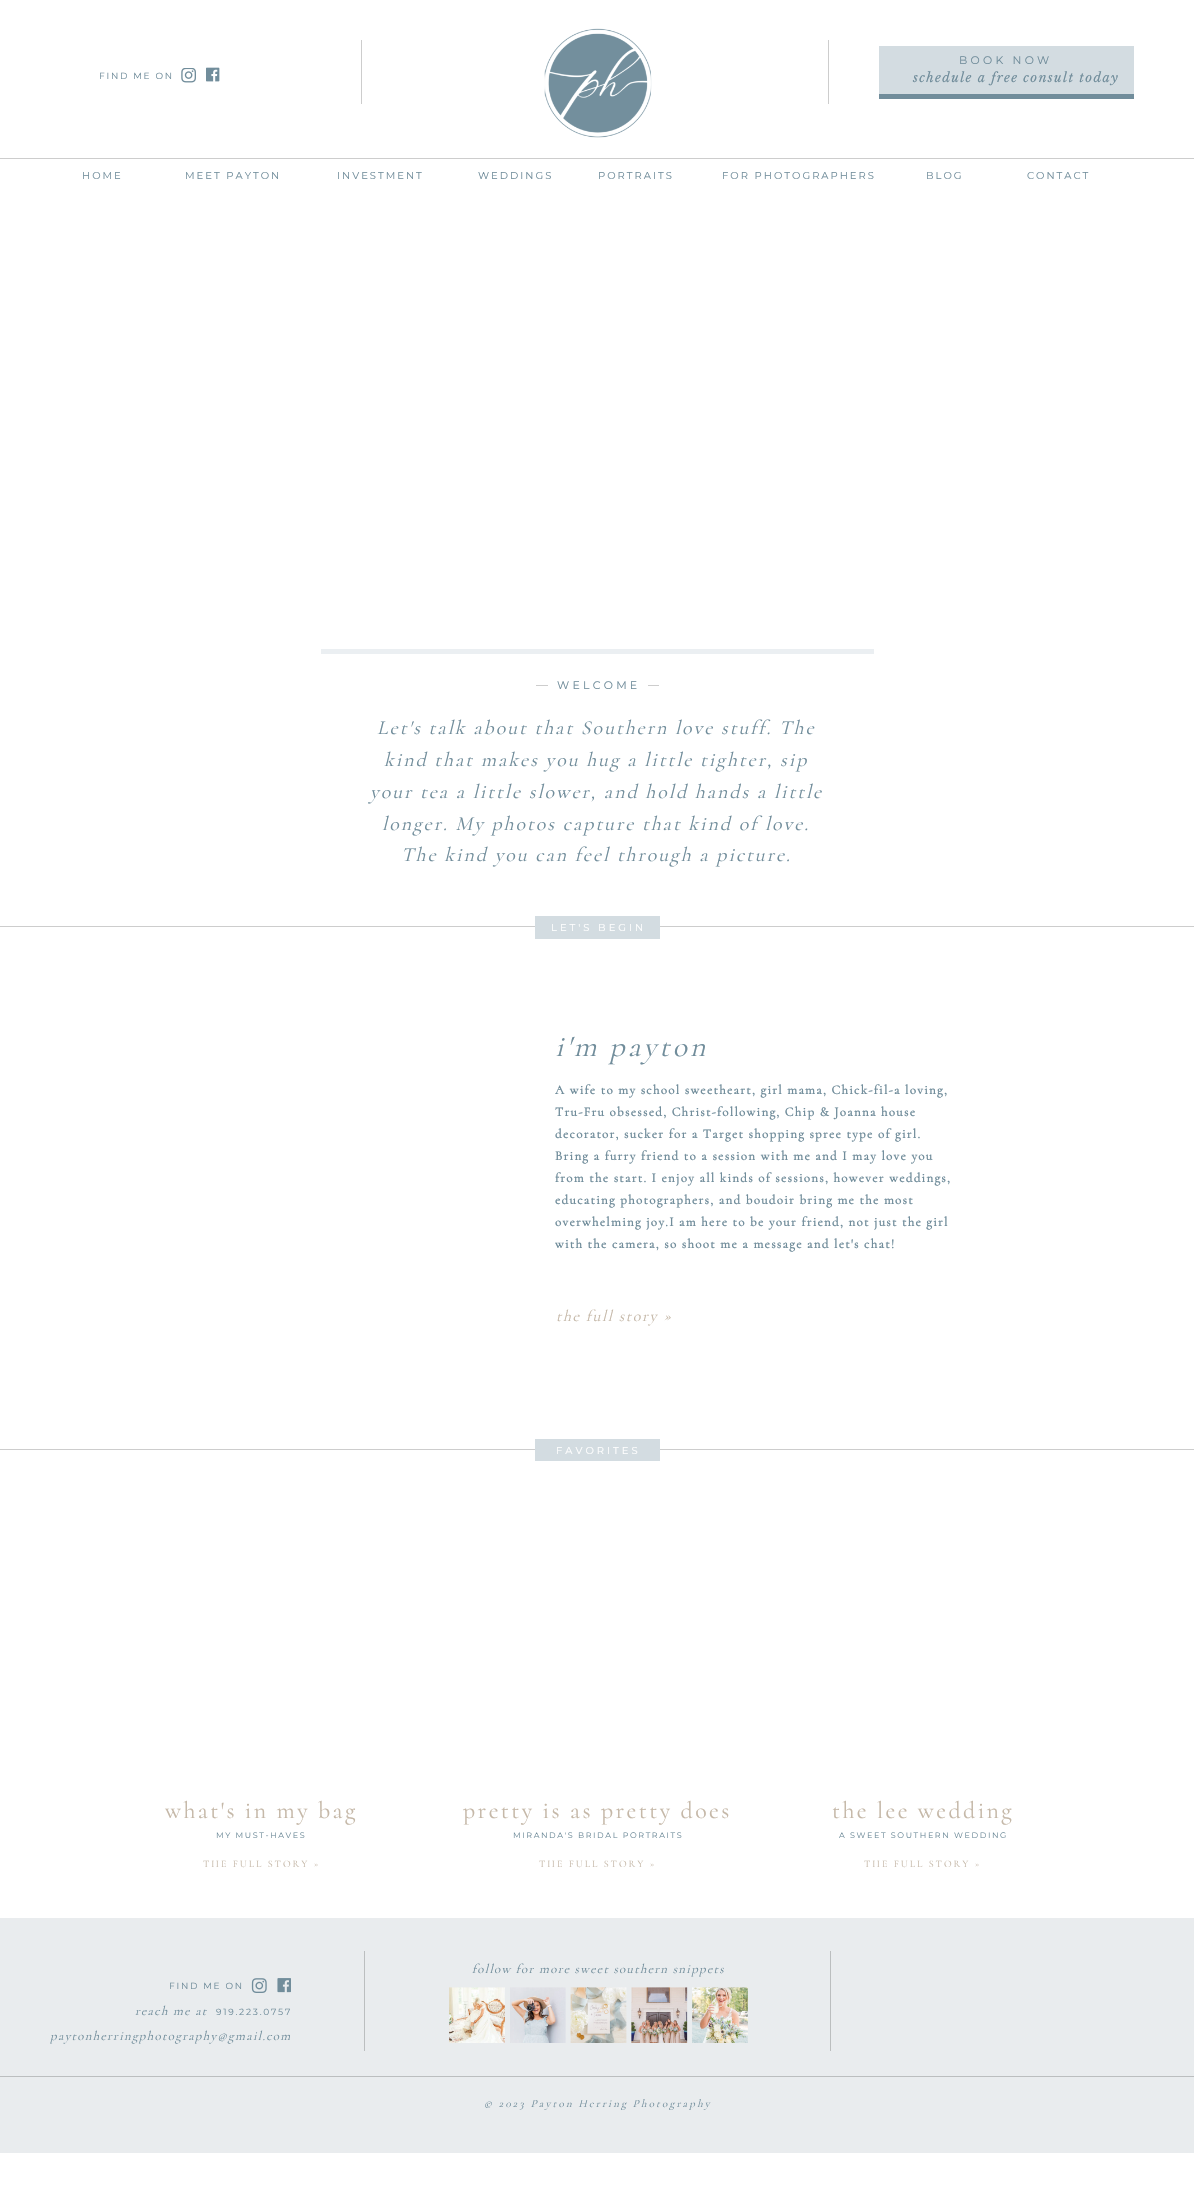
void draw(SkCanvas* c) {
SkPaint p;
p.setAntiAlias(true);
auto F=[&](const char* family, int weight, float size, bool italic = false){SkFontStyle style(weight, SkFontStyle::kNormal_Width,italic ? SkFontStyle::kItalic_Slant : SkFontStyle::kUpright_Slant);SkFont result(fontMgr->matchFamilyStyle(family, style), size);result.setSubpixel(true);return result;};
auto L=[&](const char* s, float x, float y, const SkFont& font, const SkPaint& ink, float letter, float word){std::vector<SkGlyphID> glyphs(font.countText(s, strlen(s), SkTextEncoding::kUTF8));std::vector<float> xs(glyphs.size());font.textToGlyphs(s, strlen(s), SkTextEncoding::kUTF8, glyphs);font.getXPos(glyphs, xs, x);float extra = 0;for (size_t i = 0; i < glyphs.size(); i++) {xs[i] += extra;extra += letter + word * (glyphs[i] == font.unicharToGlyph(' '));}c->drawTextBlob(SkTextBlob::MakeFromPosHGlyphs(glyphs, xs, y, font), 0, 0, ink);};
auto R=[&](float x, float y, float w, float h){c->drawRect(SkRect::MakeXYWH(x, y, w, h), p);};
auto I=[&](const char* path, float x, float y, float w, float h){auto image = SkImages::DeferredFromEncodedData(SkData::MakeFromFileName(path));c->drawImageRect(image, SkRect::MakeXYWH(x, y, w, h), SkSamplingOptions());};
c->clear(0xffffffff);
p.setColor(0xffcdcdcd);
R(361,40,1,64);
I("1.png",544,28,108,110);
R(828,40,1,64);
p.setColor(0xffd3dce1);
R(879,46,255,48);
auto f1 = F("Montserrat",100,10.95);
p.setColor(0xff718d9b);
L("BOOK NOW",959,64,f1,p,3.25,0);
auto f2 = F("Montserrat",100,9);
L("FIND ME ON",99,79,f2,p,1.75,0);
I("2.png",181,68,15,15);
I("3.png",206,67,14,15);
auto f3 = F("Libre Baskerville",400,12.95,true);
L("schedule a free consult today",913,82,f3,p,1.3,0);
R(879,94,255,5);
p.setColor(0xffcdcdcd);
R(0,158,1194,1);
auto f4 = F("Montserrat",100,10);
p.setColor(0xff718d9b);
L("HOME",82,179,f4,p,2,0);
L("MEET PAYTON",185,179,f4,p,2,0);
L("INVESTMENT",337,179,f4,p,2,0);
L("WEDDINGS",478,179,f4,p,2,0);
L("PORTRAITS",598,179,f4,p,2,0);
L("FOR PHOTOGRAPHERS",722,179,f4,p,2,0);
L("BLOG",926,179,f4,p,2,0);
L("CONTACT",1027,179,f4,p,2,0);
p.setColor(0xffebeff2);
R(321,649,553,5);
p.setColor(0xffcdcdcd);
R(536,685,12,1);
p.setColor(0xff718d9b);
L("WELCOME",557,689,f1,p,3.25,0);
p.setColor(0xffcdcdcd);
R(648,685,11,1);
auto f5 = F("Cormorant",300,19.9,true);
p.setColor(0xff718d9b);
L("Let's talk about that Southern love stuff. The",377,734,f5,p,2,0);
L("kind that makes you hug a little tighter, sip",384,766,f5,p,2,0);
L("your tea a little slower, and hold hands a little",370,798,f5,p,2,0);
L("longer. My photos capture that kind of love.",382,830,f5,p,2,0);
L("The kind you can feel through a picture.",401,861,f5,p,2,0);
p.setColor(0xffcdcdcd);
R(0,926,1194,1);
p.setColor(0xffd3dce1);
R(535,916,125,23);
p.setColor(0xffffffff);
L("LET'S BEGIN",551,931,f4,p,3,0);
auto f6 = F("Cormorant",300,30,true);
p.setColor(0xff718d9b);
L("i'm payton",555,1056,f6,p,3,0);
auto f7 = F("Cormorant",700,12.95);
L("A wife to my school sweetheart, girl mama, Chick-fil-a loving,",555,1094,f7,p,1.3,0);
L("Tru-Fru obsessed, Christ-following, Chip & Joanna house",555,1116,f7,p,1.3,0);
L("decorator, sucker for a Target shopping spree type of girl.",555,1138,f7,p,1.3,0);
L("Bring a furry friend to a session with me and I may love you",555,1160,f7,p,1.3,0);
L("from the start. I enjoy all kinds of sessions, however weddings,",555,1182,f7,p,1.3,0);
L("educating photographers, and boudoir bring me the most",555,1204,f7,p,1.3,0);
L("overwhelming joy.I am here to be your friend, not just the girl",555,1226,f7,p,1.3,0);
L("with the camera, so shoot me a message and let's chat!",555,1248,f7,p,1.3,0);
auto f8 = F("Cormorant",300,16,true);
p.setColor(0xffc5b8a8);
L("the full story »",556,1321,f8,p,1.6,0);
p.setColor(0xffcdcdcd);
R(0,1449,1194,1);
p.setColor(0xffd3dce1);
R(535,1439,125,22);
p.setColor(0xffffffff);
L("FAVORITES",556,1454,f4,p,3,0);
auto f9 = F("Cormorant",300,23.9);
p.setColor(0xffc5b8a8);
L("what's in my bag",165,1818,f9,p,2.4,0);
L("pretty is as pretty does",463,1818,f9,p,2.4,0);
L("the lee wedding",832,1818,f9,p,2.4,0);
auto f10 = F("Montserrat",100,8);
p.setColor(0xff718d9b);
L("MY MUST-HAVES",216,1838,f10,p,1.6,0);
L("MIRANDA'S BRIDAL PORTRAITS",513,1838,f10,p,1.6,0);
L("A SWEET SOUTHERN WEDDING",839,1838,f10,p,1.6,0);
auto f11 = F("Cormorant",300,10);
p.setColor(0xffc5b8a8);
L("THE FULL STORY »",203,1867,f11,p,2,0);
L("THE FULL STORY »",539,1867,f11,p,2,0);
L("THE FULL STORY »",864,1867,f11,p,2,0);
p.setColor(0xffe9ecee);
R(0,1918,1194,235);
p.setColor(0xffbbbebf);
R(364,1951,1,100);
auto f12 = F("Cormorant",300,12.95,true);
p.setColor(0xff718d9b);
L("follow for more sweet southern snippets",472,1973,f12,p,1.3,0);
p.setColor(0xffbbbebf);
R(830,1951,1,100);
p.setColor(0xff718d9b);
L("FIND ME ON",169,1989,f2,p,1.75,0);
I("4.png",251,1978,16,15);
I("5.png",277,1978,14,15);
L("reach me at",135,2015,f12,p,1.3,0);
L("919.223.0757",216,2015,f2,p,1.75,0);
I("6.png",449,1987,56,56);
I("7.png",510,1987,56,56);
I("8.png",570,1987,57,56);
I("9.png",631,1987,57,56);
I("10.png",692,1987,56,56);
L("paytonherringphotography@gmail.com",50,2040,f12,p,1.3,0);
p.setColor(0xffbbbebf);
R(0,2076,1194,1);
auto f13 = F("Cormorant",300,10.95,true);
p.setColor(0xff718d9b);
L("© 2023 Payton Herring Photography",484,2107,f13,p,2.2,0);
}
